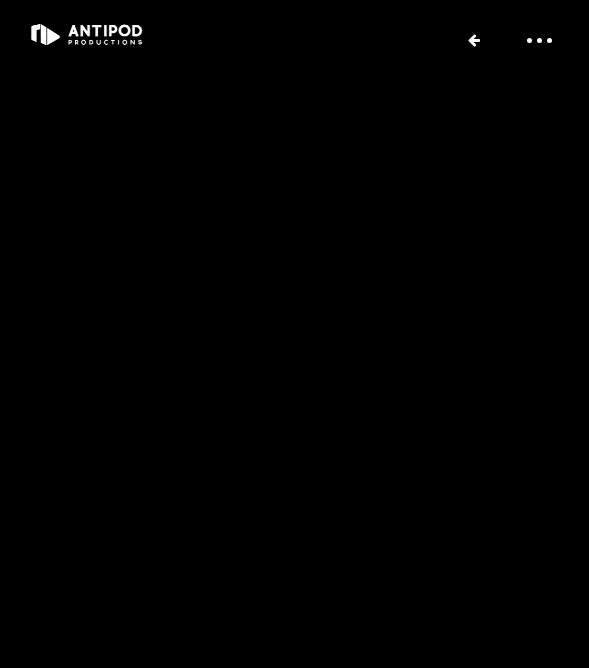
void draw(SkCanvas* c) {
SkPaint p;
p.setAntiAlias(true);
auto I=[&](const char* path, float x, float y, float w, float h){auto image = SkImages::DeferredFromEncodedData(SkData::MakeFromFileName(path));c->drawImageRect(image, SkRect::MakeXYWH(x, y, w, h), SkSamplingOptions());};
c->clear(0xff000000);
I("1.png",31,23,112,22);
I("2.png",468,34,12,13);
p.setColor(0xffffffff);
c->drawCircle(529.5,40.5,2.5,p);
c->drawCircle(539.5,40.5,2.5,p);
c->drawCircle(549.5,40.5,2.5,p);
}
